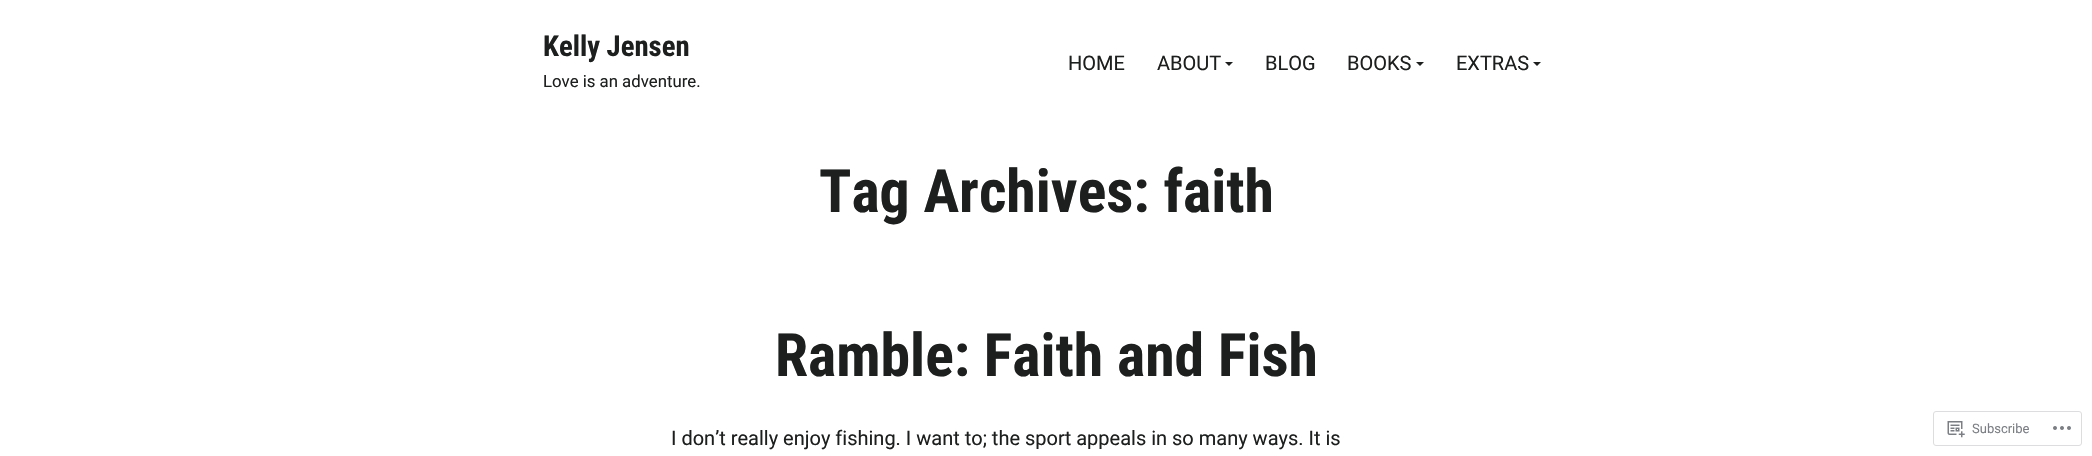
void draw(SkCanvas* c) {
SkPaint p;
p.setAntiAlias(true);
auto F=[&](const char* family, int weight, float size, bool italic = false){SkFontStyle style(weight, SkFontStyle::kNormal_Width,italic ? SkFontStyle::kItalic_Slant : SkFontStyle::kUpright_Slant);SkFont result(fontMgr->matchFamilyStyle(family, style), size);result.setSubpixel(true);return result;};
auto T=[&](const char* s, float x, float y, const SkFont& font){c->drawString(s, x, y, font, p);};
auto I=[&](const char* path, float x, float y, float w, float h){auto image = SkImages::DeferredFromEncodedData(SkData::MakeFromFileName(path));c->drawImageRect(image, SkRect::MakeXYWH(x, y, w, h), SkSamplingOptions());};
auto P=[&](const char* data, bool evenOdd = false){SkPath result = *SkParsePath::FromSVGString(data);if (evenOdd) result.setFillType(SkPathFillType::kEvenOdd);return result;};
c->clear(0xffffffff);
auto f1 = F("Roboto Condensed",700,28.75);
p.setColor(0xff1d1e1e);
T("Kelly Jensen",543,56,f1);
auto f2 = F("Roboto",400,16.75);
T("Love is an adventure.",543,87,f2);
auto f3 = F("Roboto",400,20);
T("HOME",1068,70,f3);
T("ABOUT",1157,70,f3);
c->drawPath(P("M1225 62h8l-4 4z"),p);
T("BLOG",1265,70,f3);
T("BOOKS",1347,70,f3);
c->drawPath(P("M1416 62h8l-4 4z"),p);
T("EXTRAS",1456,70,f3);
c->drawPath(P("M1533 62h8l-4 4z"),p);
auto f4 = F("Roboto Condensed",700,59.75);
T("Tag Archives: faith",819,212,f4);
T("Ramble: Faith and Fish",775,376,f4);
T("I don’t really enjoy fishing. I want to; the sport appeals in so many ways. It is",671,445,f3);
p.setStroke(true);
p.setStrokeWidth(1);
p.setColor(0xffdddddf);
c->drawRoundRect(SkRect::MakeXYWH(1933.5,411.5,148,34),2.5,2.5,p);
I("1.png",1947,421,18,17);
auto f5 = F("Roboto",400,13);
p.setStroke(false);
p.setColor(0xff7b7f85);
T("Subscribe",1972,433,f5);
I("2.png",2053,426,18,4);
}
